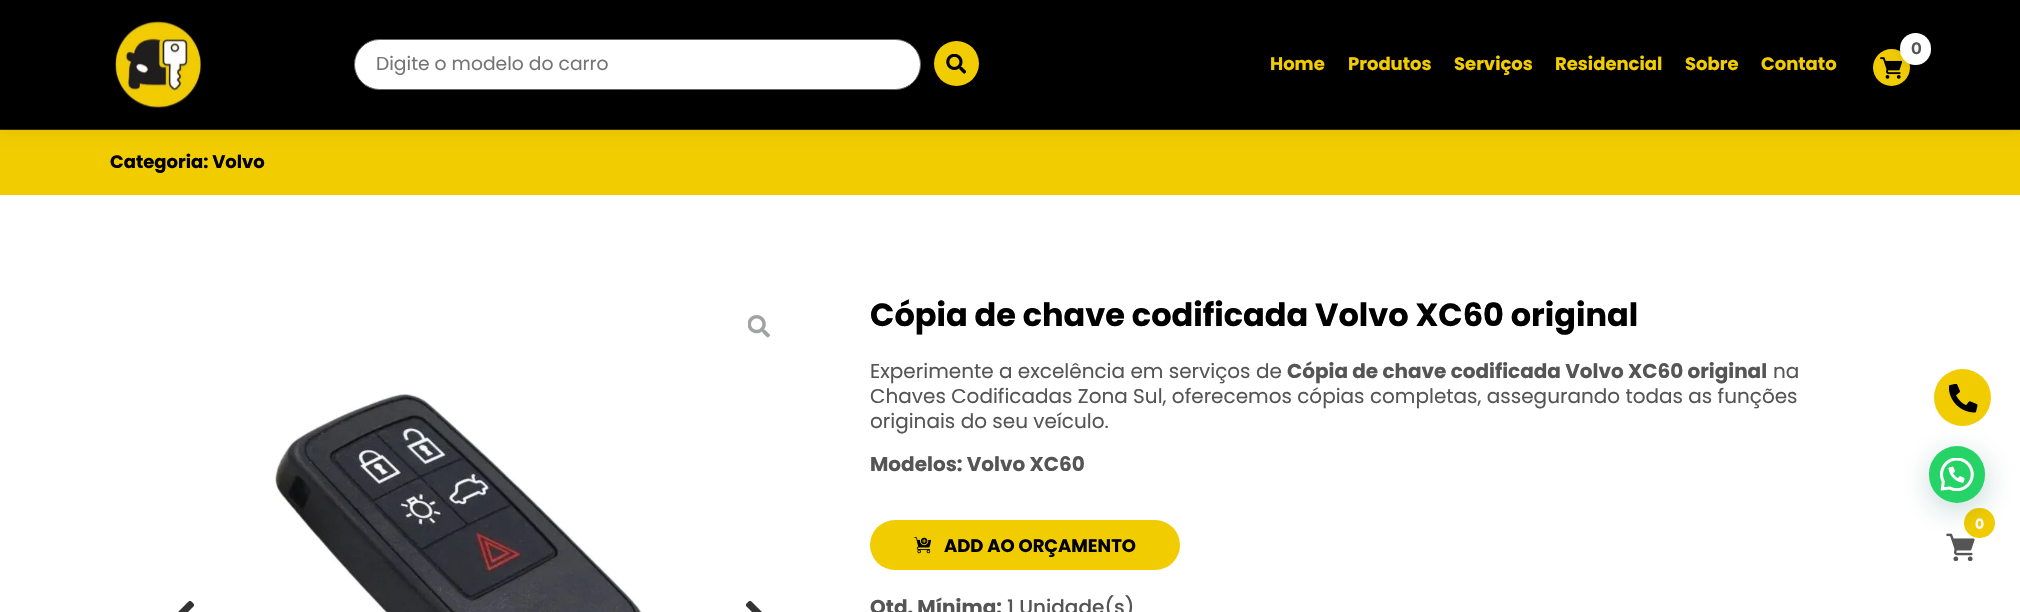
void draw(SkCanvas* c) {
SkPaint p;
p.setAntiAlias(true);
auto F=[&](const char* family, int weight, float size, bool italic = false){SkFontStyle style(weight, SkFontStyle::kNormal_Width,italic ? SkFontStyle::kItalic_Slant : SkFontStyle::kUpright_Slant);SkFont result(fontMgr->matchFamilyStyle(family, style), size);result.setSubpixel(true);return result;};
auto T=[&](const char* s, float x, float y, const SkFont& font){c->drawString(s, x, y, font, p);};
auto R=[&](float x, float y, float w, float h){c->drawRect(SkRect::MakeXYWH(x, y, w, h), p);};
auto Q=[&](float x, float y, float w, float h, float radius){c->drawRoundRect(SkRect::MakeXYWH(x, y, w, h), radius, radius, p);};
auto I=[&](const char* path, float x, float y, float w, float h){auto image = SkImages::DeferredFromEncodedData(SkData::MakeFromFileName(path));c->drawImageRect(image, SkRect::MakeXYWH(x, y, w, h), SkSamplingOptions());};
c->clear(0xffffffff);
p.setColor(0xfff1cc01);
R(0,130,2020,65);
p.setColor(0x17000000);
p.setMaskFilter(SkMaskFilter::MakeBlur(kNormal_SkBlurStyle, 6));
c->drawRect(SkRect::MakeXYWH(0,0,2020,130),p);
p.setMaskFilter(nullptr);
p.setColor(0xff000000);
R(0,0,2020,129);
p.setColor(0xff302900);
R(0,129,2020,1);
I("1.png",115,21,88,87);
p.setColor(0xffffffff);
c->drawRoundRect(SkRect::MakeXYWH(354.5,39.5,566,50),25,25,p);
p.setStroke(true);
p.setStrokeWidth(1);
p.setColor(0xff666666);
c->drawRoundRect(SkRect::MakeXYWH(354.5,39.5,566,50),25,25,p);
auto f1 = F("Poppins",400,18.75);
p.setStroke(false);
p.setColor(0xff757575);
T("Digite o modelo do carro",376,70,f1);
p.setColor(0xfff1cc01);
c->drawCircle(956.5,63.5,22.5,p);
I("2.png",946,54,20,20);
auto f2 = F("Poppins",700,18);
T("Home",1270,70,f2);
T("Produtos",1348,70,f2);
T("Serviços",1454,70,f2);
T("Residencial",1555,70,f2);
T("Sobre",1685,70,f2);
T("Contato",1761,70,f2);
c->drawCircle(1891.5,67.5,18.5,p);
I("3.png",1880,57,23,22);
p.setColor(0x1a000000);
p.setMaskFilter(SkMaskFilter::MakeBlur(kNormal_SkBlurStyle, 6));
c->drawRoundRect(SkRect::MakeXYWH(1900,33,31,32),15.5,15.5,p);
p.setMaskFilter(nullptr);
p.setColor(0xffffffff);
Q(1900,33,31,32,15.5);
auto f3 = F("Inter",700,16);
p.setColor(0xff555555);
T("0",1911,54,f3);
p.setColor(0xff000000);
T("Categoria: Volvo",110,168,f2);
I("4.png",178,601,16,11);
I("5.png",748,315,22,23);
I("6.png",275,394,367,218);
I("7.png",746,601,16,11);
auto f4 = F("Poppins",700,32);
T("Cópia de chave codificada Volvo XC60 original",870,326,f4);
auto f5 = F("Poppins",400,20);
p.setColor(0xff555555);
T("Experimente a excelência em serviços de",870,378,f5);
auto f6 = F("Poppins",700,20);
T("Cópia de chave codificada Volvo XC60 original",1287,378,f6);
T("na",1773,378,f5);
T("Chaves Codificadas Zona Sul, oferecemos cópias completas, assegurando todas as funções",870,403,f5);
T("originais do seu veículo.",870,428,f5);
T("Modelos: Volvo XC60",870,471,f6);
p.setColor(0xfff1cc01);
Q(870,520,310,50,25);
I("8.png",914,537,17,17);
p.setColor(0xff000000);
T("ADD AO ORÇAMENTO",944,552,f2);
p.setColor(0xff555555);
T("Qtd. Mínima:",870,614,f6);
auto f7 = F("Poppins",500,20);
T("1 Unidade(s)",1007,614,f7);
p.setColor(0xfff1cc01);
c->drawCircle(1962.5,397.5,28.5,p);
I("9.png",1949,384,29,29);
I("11.png",1946,533,29,28);
Q(1964,508,31,30,15);
p.setColor(0x3d075e54);
p.setMaskFilter(SkMaskFilter::MakeBlur(kNormal_SkBlurStyle, 15));
c->drawRoundRect(SkRect::MakeXYWH(1930,454,56,56),28,28,p);
p.setMaskFilter(nullptr);
p.setColor(0xff25d366);
Q(1929,446,56,57,28);
I("10.png",1940,458,34,33);
auto f8 = F("Poppins",700,14);
p.setColor(0xfffff8f1);
T("0",1975,529,f8);
}
